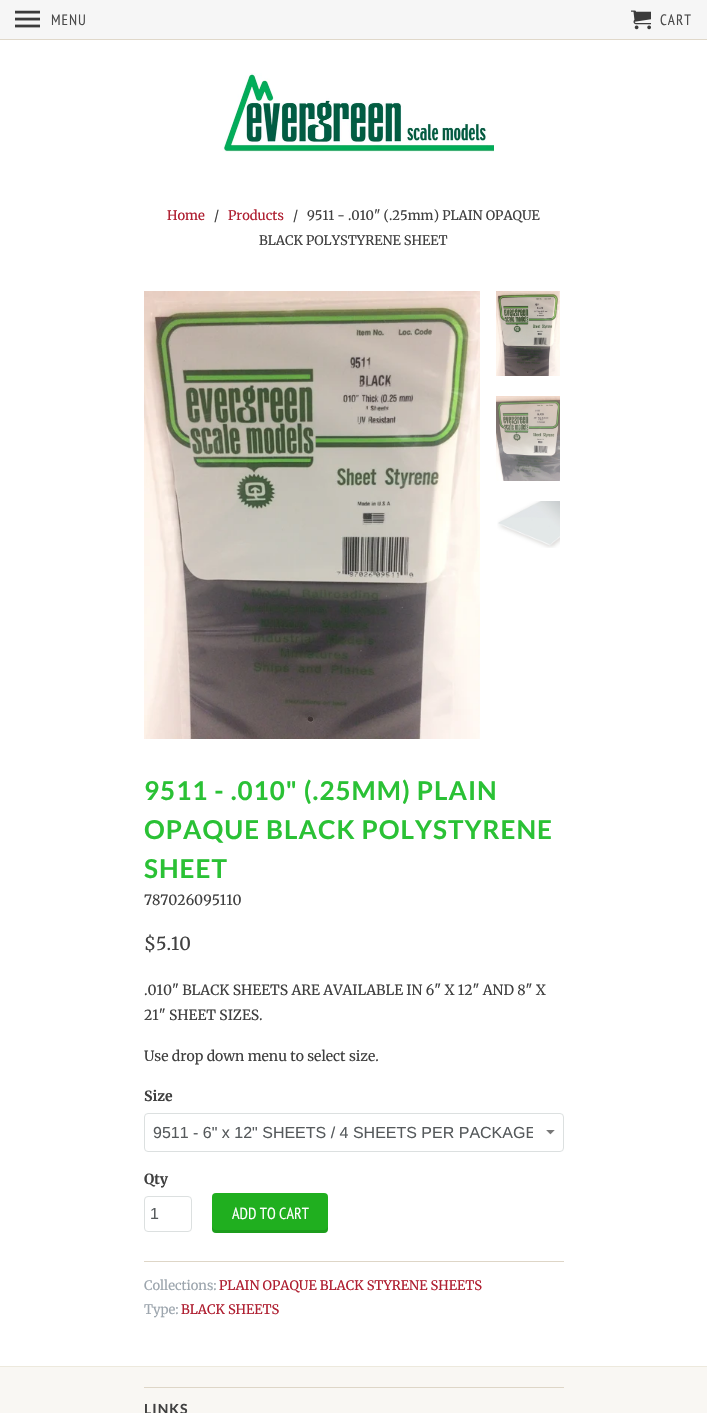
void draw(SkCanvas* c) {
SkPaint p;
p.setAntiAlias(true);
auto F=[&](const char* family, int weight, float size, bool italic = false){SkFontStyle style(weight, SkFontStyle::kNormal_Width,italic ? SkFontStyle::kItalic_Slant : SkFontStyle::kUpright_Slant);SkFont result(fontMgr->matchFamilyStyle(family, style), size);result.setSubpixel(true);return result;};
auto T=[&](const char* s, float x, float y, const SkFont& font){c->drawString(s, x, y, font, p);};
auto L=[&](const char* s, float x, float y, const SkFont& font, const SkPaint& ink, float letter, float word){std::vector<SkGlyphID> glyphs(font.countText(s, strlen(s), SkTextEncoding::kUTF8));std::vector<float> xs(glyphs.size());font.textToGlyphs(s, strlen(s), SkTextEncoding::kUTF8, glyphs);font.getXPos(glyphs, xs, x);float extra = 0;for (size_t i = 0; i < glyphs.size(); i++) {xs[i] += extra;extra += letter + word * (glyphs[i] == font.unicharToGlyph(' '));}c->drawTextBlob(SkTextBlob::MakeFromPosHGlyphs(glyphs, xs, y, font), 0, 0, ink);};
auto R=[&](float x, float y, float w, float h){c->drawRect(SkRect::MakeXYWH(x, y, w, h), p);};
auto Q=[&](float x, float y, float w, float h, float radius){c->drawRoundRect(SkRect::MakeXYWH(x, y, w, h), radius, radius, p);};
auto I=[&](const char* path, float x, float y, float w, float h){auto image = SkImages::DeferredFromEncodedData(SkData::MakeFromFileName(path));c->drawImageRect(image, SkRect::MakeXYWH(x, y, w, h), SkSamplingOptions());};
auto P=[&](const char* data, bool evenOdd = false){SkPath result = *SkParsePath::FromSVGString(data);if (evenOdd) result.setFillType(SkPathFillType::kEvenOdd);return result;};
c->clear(0xffffffff);
p.setColor(0xfff6f6f6);
R(0,0,707,39);
p.setColor(0xffe0d8ca);
R(0,39,707,1);
I("1.png",15,10,25,18);
auto f1 = F("PT Sans Narrow",400,15);
p.setColor(0xff4a4a4a);
L("MENU",51,25,f1,p,1,0);
I("2.png",631,10,20,20);
L("CART",660,25,f1,p,1,0);
I("3.png",223,73,271,79);
auto f2 = F("Merriweather",400,13);
p.setColor(0xffaf1f31);
T("Home",167,220,f2);
p.setColor(0xff404040);
T("/",214,220,f2);
p.setColor(0xffaf1f31);
T("Products",228,220,f2);
p.setColor(0xff404040);
T("/",293,220,f2);
T("9511 - .010\" (.25mm) PLAIN OPAQUE",307,220,f2);
T("BLACK POLYSTYRENE SHEET",259,245,f2);
I("4.png",144,291,336,448);
I("5.png",496,291,64,85);
I("6.png",496,396,64,85);
I("7.png",497,501,63,47);
auto f3 = F("Lato",700,26);
p.setColor(0xff2ac135);
L("9511 - .010\" (.25MM) PLAIN",144,800,f3,p,1,0);
L("OPAQUE BLACK POLYSTYRENE",144,839,f3,p,1,0);
L("SHEET",144,878,f3,p,1,0);
auto f4 = F("Merriweather",400,14);
p.setColor(0xff404040);
T("787026095110",144,905,f4);
auto f5 = F("Merriweather",400,18);
T("$5.10",144,950,f5);
T(".010\" BLACK SHEETS ARE AVAILABLE IN 6\" X 12\" AND 8\" X",144,995,f4);
T("21\" SHEET SIZES.",144,1020,f4);
T("Use drop down menu to select size.",144,1061,f4);
auto f6 = F("Merriweather",700,14);
T("Size",144,1101,f6);
I("8.png",546,1130,9,5);
p.setStroke(true);
p.setStrokeWidth(1);
p.setColor(0xffdce0e0);
c->drawRoundRect(SkRect::MakeXYWH(144.5,1113.5,419,38),3.5,3.5,p);
c->save();
c->clipRect(SkRect::MakeXYWH(153,1124,380,17));
auto f7 = F("Liberation Sans",400,16);
p.setStroke(false);
p.setColor(0xff565a5c);
T("9511 - 6\" x 12\" SHEETS / 4 SHEETS PER PACKAGE",153,1138,f7);
c->restore();
p.setColor(0xff404040);
T("Qty",144,1184,f6);
p.setStroke(true);
p.setColor(0xffdce0e0);
c->drawRoundRect(SkRect::MakeXYWH(144.5,1196.5,47,35),3.5,3.5,p);
p.setStroke(false);
p.setColor(0xff565a5c);
T("1",150,1219,f7);
p.setColor(0xff20af1f);
Q(212,1193,116,40,4);
p.setColor(0x1a000000);
c->drawPath(P("M212 1226v3c0 2 2 4 4 4h108c2 0 4-2 4-4v-3c0 2-2 4-4 4h-108c-2 0-4-2-4-4z"),p);
auto f8 = F("PT Sans Narrow",400,16);
p.setColor(0xffffffff);
T("ADD TO CART",232,1219,f8);
p.setColor(0xffded6c7);
R(144,1261,420,1);
p.setColor(0xff9da6ae);
T("Collections:",144,1290,f2);
p.setColor(0xffaf1f31);
T("PLAIN OPAQUE BLACK STYRENE SHEETS",219,1290,f2);
p.setColor(0xff9da6ae);
T("Type:",144,1314,f2);
p.setColor(0xffaf1f31);
T("BLACK SHEETS",181,1314,f2);
p.setColor(0xfff9f7f3);
R(0,1367,707,46);
p.setColor(0xffede9dd);
R(0,1366,707,1);
p.setColor(0xffded6c7);
R(144,1387,420,1);
auto f9 = F("Lato",700,14);
p.setColor(0xff404040);
L("LINKS",144,1414,f9,p,1,0);
}
